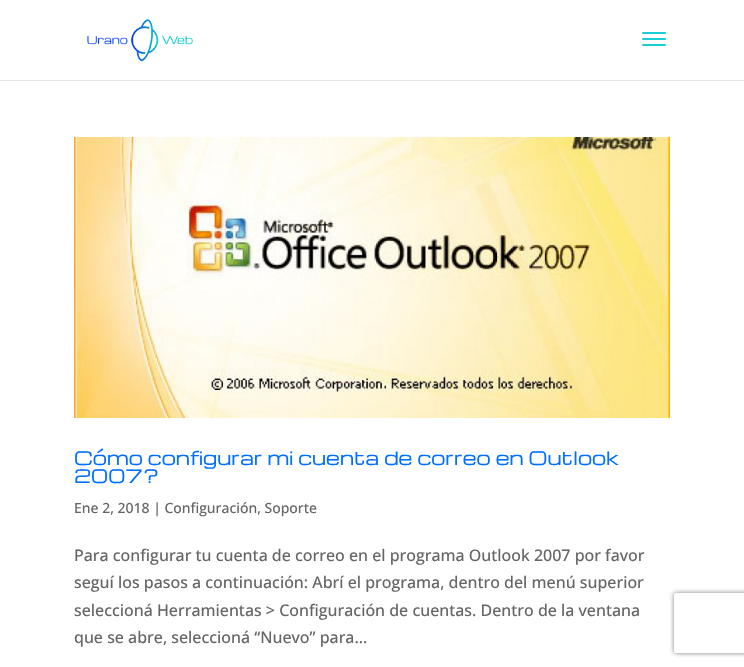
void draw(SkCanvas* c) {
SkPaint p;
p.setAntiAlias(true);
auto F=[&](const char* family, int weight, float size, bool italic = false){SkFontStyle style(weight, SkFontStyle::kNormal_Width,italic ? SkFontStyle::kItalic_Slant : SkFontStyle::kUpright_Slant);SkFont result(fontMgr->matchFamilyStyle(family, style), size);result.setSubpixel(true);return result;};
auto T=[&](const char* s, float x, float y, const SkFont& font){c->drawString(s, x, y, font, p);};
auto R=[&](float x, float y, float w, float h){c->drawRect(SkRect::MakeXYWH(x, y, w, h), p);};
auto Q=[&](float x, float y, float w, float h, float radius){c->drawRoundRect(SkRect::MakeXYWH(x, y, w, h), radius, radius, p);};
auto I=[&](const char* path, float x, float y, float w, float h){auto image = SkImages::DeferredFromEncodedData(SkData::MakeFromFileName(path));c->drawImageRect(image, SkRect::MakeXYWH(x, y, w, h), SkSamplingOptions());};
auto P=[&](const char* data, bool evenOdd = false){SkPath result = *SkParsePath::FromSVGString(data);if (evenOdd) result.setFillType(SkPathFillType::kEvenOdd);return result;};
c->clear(0xffffffff);
p.setColor(0xffe6e6e6);
R(0,80,744,1);
I("1.png",87,19,106,43);
p.setColor(0xff19ced2);
Q(642,32,24,2,1);
Q(642,38,24,2,1);
Q(642,44,24,2,1);
I("2.png",74,137,596,281);
auto f1 = F("Michroma",400,18);
p.setColor(0xff006eff);
T("Cómo configurar mi cuenta de correo en Outlook",74,465,f1);
T("2007?",74,483,f1);
auto f2 = F("Open Sans",500,14);
p.setColor(0xff666666);
T("Ene 2, 2018 | Configuración, Soporte",74,513,f2);
auto f3 = F("Open Sans",500,16);
T("Para configurar tu cuenta de correo en el programa Outlook 2007 por favor",74,561,f3);
T("seguí los pasos a continuación: Abrí el programa, dentro del menú superior",74,588,f3);
T("seleccioná Herramientas > Configuración de cuentas. Dentro de la ventana",74,616,f3);
T("que se abre, seleccioná “Nuevo” para...",74,643,f3);
c->save();
c->clipPath(P("M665 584h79v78h-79zm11 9h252c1 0 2 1 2 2v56c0 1-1 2-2 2h-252c-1 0-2-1-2-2v-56c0-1 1-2 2-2z",true),true);
p.setColor(0xff808080);
p.setMaskFilter(SkMaskFilter::MakeBlur(kNormal_SkBlurStyle, 2.5));
c->drawRoundRect(SkRect::MakeXYWH(674,593,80,60),2,2,p);
p.setMaskFilter(nullptr);
c->restore();
}
